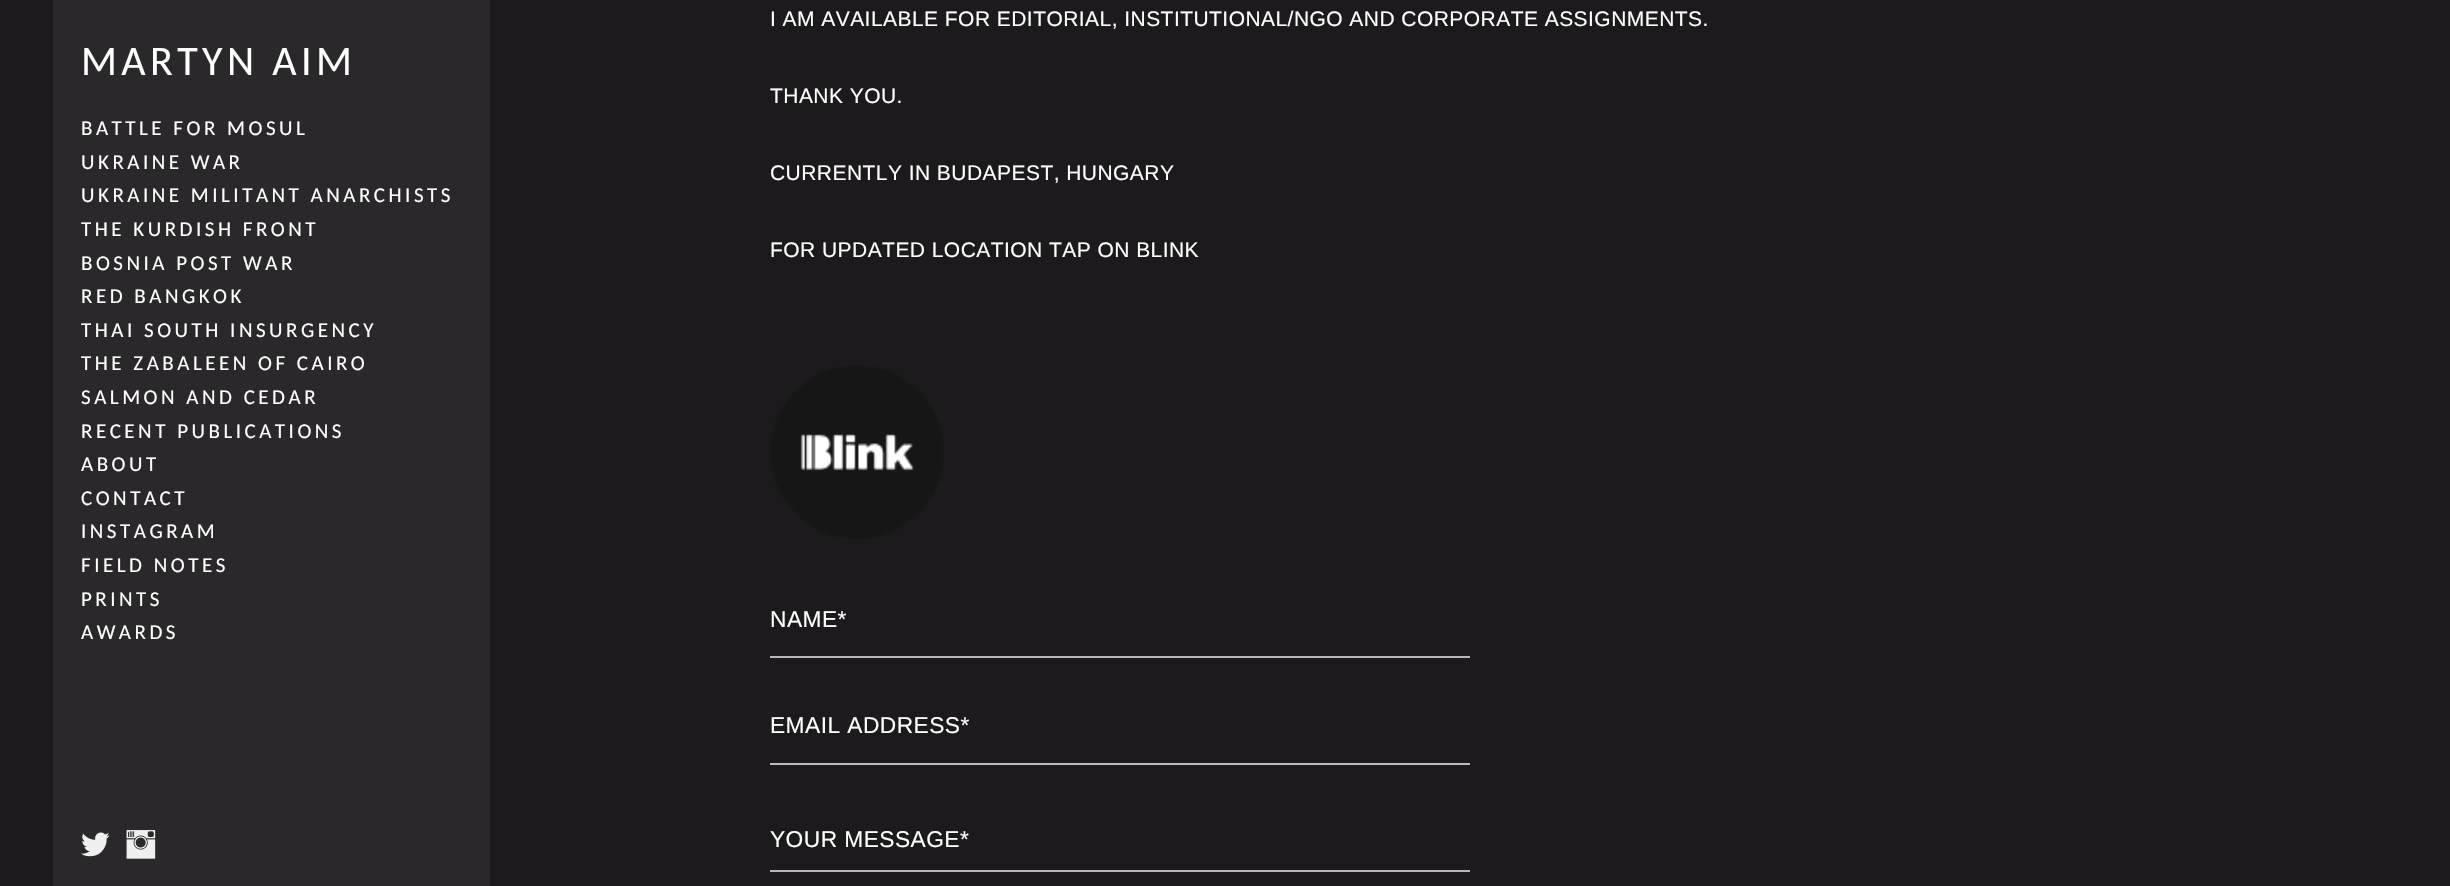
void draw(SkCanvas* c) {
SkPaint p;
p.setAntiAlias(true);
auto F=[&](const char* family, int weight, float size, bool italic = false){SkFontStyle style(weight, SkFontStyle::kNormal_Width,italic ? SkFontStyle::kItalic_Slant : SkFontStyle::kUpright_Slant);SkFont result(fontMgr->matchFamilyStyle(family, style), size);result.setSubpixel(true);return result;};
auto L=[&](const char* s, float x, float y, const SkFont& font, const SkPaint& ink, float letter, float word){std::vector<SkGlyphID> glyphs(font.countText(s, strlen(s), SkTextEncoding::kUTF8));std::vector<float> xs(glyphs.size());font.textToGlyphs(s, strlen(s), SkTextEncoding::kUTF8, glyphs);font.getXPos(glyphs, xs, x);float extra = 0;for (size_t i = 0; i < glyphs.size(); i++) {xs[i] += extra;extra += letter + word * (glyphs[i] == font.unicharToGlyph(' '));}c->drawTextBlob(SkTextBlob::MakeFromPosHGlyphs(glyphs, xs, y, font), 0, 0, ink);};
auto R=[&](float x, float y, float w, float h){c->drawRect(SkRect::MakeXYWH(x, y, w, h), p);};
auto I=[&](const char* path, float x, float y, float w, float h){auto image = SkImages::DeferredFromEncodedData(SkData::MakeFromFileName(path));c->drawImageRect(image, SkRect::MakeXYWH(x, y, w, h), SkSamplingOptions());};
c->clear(0xff1c1a1c);
p.setColor(0xff2a282a);
R(53,0,437,886);
auto f1 = F("Carlito",400,42);
p.setColor(0xffffffff);
L("MARTYN AIM",81,75,f1,p,4.4,0);
auto f2 = F("Carlito",400,21);
L("BATTLE FOR MOSUL",81,135,f2,p,3.5,0);
L("UKRAINE WAR",81,169,f2,p,3.5,0);
L("UKRAINE MILITANT ANARCHISTS",81,202,f2,p,3.5,0);
L("THE KURDISH FRONT",81,236,f2,p,3.5,0);
L("BOSNIA POST WAR",81,270,f2,p,3.5,0);
L("RED BANGKOK",81,303,f2,p,3.5,0);
L("THAI SOUTH INSURGENCY",81,337,f2,p,3.5,0);
L("THE ZABALEEN OF CAIRO",81,370,f2,p,3.5,0);
L("SALMON AND CEDAR",81,404,f2,p,3.5,0);
L("RECENT PUBLICATIONS",81,438,f2,p,3.5,0);
L("ABOUT",81,471,f2,p,3.5,0);
L("CONTACT",81,505,f2,p,3.5,0);
L("INSTAGRAM",81,538,f2,p,3.5,0);
L("FIELD NOTES",81,572,f2,p,3.5,0);
L("PRINTS",81,606,f2,p,3.5,0);
L("AWARDS",81,639,f2,p,3.5,0);
auto f3 = F("Liberation Sans",400,21);
L("I AM AVAILABLE FOR EDITORIAL, INSTITUTIONAL/NGO AND CORPORATE ASSIGNMENTS.",770,26,f3,p,.45,0);
L("THANK YOU.",770,103,f3,p,.45,0);
L("CURRENTLY IN BUDAPEST, HUNGARY",770,180,f3,p,.45,0);
L("FOR UPDATED LOCATION TAP ON BLINK",770,257,f3,p,.45,0);
I("1.png",770,366,174,173);
auto f4 = F("Liberation Sans",400,22.75);
L("NAME*",770,627,f4,p,.45,0);
p.setColor(0xffbbbabb);
R(770,656,700,2);
p.setColor(0xffffffff);
L("EMAIL ADDRESS*",770,733,f4,p,.45,0);
p.setColor(0xffbbbabb);
R(770,763,700,2);
p.setColor(0xffffffff);
L("YOUR MESSAGE*",770,847,f4,p,.45,0);
p.setColor(0xffbbbabb);
R(770,870,700,2);
I("2.png",81,832,29,25);
I("3.png",126,830,30,29);
}
